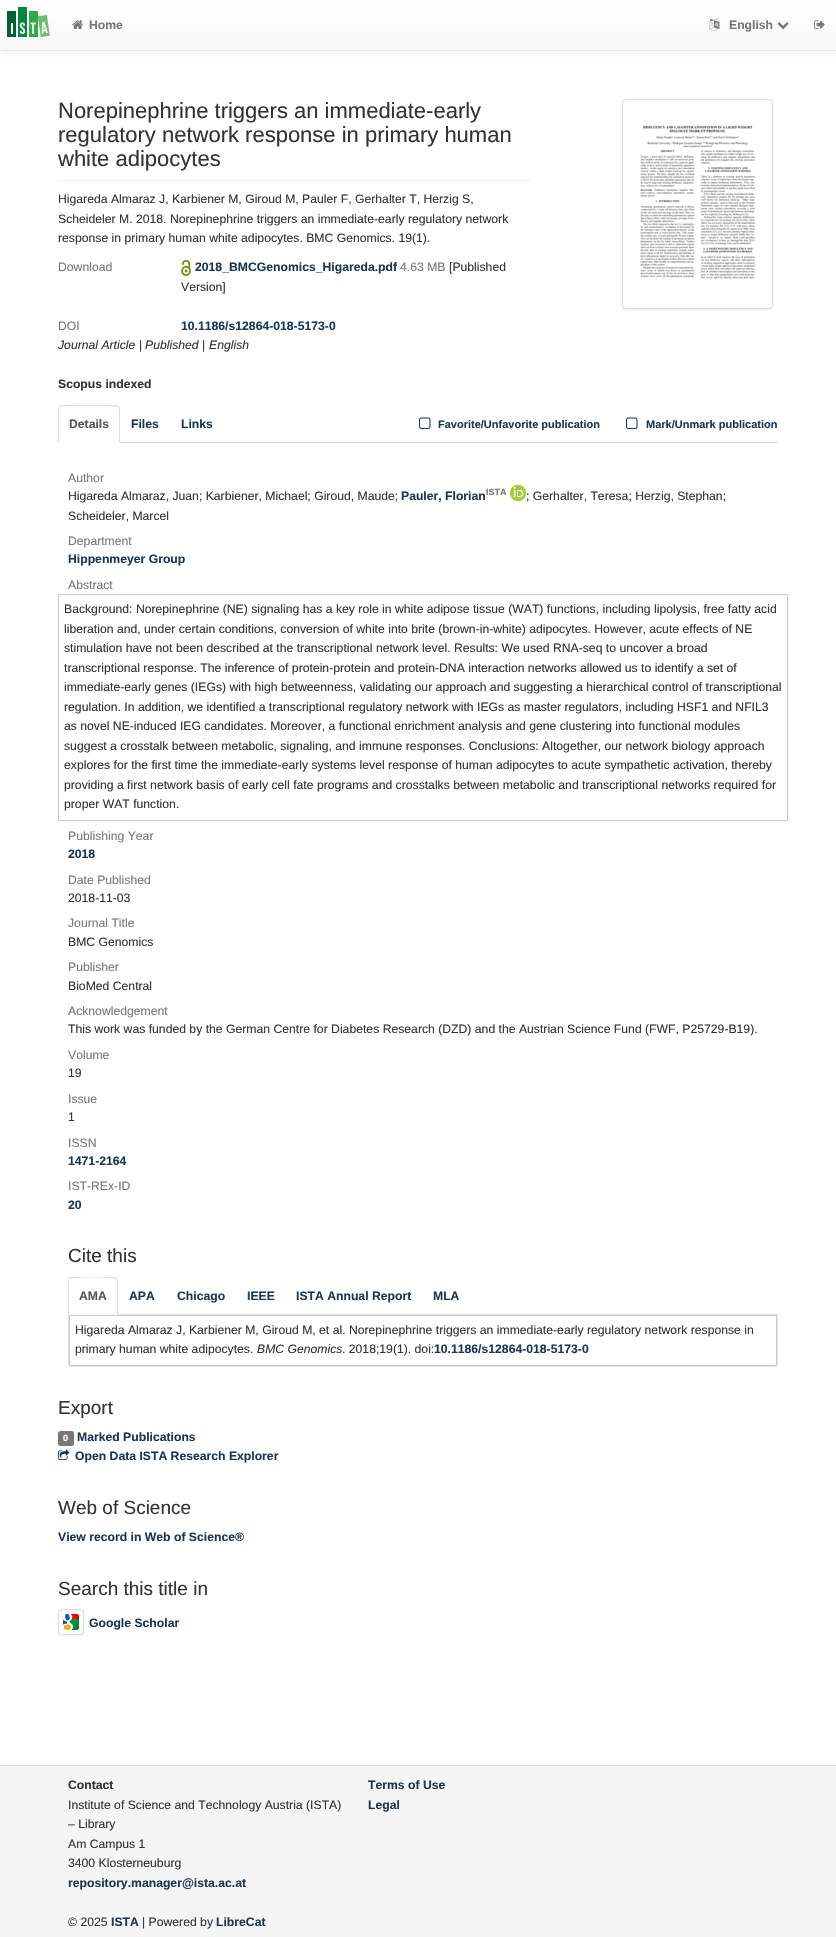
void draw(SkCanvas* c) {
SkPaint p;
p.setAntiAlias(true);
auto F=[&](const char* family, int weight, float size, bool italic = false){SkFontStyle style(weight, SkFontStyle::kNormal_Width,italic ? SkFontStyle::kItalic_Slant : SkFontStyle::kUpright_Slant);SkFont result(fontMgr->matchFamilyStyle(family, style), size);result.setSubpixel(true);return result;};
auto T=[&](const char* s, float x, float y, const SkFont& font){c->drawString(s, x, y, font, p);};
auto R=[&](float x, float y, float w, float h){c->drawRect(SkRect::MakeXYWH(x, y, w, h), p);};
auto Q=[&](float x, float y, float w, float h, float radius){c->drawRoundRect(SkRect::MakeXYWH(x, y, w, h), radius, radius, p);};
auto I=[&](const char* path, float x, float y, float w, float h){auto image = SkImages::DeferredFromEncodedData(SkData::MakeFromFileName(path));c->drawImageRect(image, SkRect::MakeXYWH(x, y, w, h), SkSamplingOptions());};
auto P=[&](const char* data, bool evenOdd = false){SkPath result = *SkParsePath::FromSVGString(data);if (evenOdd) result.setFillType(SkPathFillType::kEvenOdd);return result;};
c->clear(0xffffffff);
p.setColor(0x12000000);
p.setMaskFilter(SkMaskFilter::MakeBlur(kNormal_SkBlurStyle, 2.5));
c->drawRect(SkRect::MakeXYWH(0,1,836,51),p);
p.setMaskFilter(nullptr);
{
const SkColor colors[] = {0xffffffff,0xfff8f8f8};
const float stops[] = {0,1};
const SkPoint ends[] = {{418,0}, {418,50}};
p.setShader(SkGradientShader::MakeLinear(ends, colors, stops, 2, SkTileMode::kClamp));
p.setAlpha(255);
}
R(0,0,836,50);
p.setShader(nullptr);
p.setColor(0xffe7e7e7);
R(0,50,836,1);
I("1.png",7,7,43,30);
I("2.png",72,20,12,9);
auto f1 = F("Liberation Sans",700,12.2);
p.setColor(0xff777777);
T("Home",89,29,f1);
I("3.png",709,18,11,13);
T("English",729,29,f1);
I("4.png",777,22,12,8);
I("5.png",814,20,11,9);
p.setColor(0xffeeeeee);
R(58,180,473,1);
auto f2 = F("Liberation Sans",400,22);
p.setColor(0xff333333);
T("Norepinephrine triggers an immediate-early",58,118,f2);
T("regulatory network response in primary human",58,142,f2);
T("white adipocytes",58,166,f2);
auto f3 = F("Liberation Sans",400,12.2);
T("Higareda Almaraz J, Karbiener M, Giroud M, Pauler F, Gerhalter T, Herzig S,",58,203,f3);
T("Scheideler M. 2018. Norepinephrine triggers an immediate-early regulatory network",58,223,f3);
T("response in primary human white adipocytes. BMC Genomics. 19(1).",58,242,f3);
p.setColor(0xff777777);
T("Download",58,271,f3);
I("6.png",181,260,10,16);
p.setColor(0xff193854);
T("2018_BMCGenomics_Higareda.pdf",195,271,f1);
p.setColor(0xff777777);
T("4.63 MB",400,271,f3);
p.setColor(0xff333333);
T("[Published",449,271,f3);
T("Version]",181,291,f3);
p.setColor(0xff777777);
T("DOI",58,330,f3);
p.setColor(0xff193854);
T("10.1186/s12864-018-5173-0",181,330,f1);
auto f4 = F("Liberation Sans",400,12.2,true);
p.setColor(0xff333333);
T("Journal Article",58,349,f4);
T("|",139,349,f3);
T("Published",145,349,f4);
T("|",202,349,f3);
T("English",209,349,f4);
T("Scopus indexed",58,388,f1);
p.setColor(0x12000000);
p.setMaskFilter(SkMaskFilter::MakeBlur(kNormal_SkBlurStyle, 1));
c->drawRoundRect(SkRect::MakeXYWH(622,100,151,210),4,4,p);
p.setMaskFilter(nullptr);
p.setColor(0xffffffff);
c->drawRoundRect(SkRect::MakeXYWH(622.5,99.5,150,209),3.5,3.5,p);
p.setStroke(true);
p.setStrokeWidth(1);
p.setColor(0xffdddddd);
c->drawRoundRect(SkRect::MakeXYWH(622.5,99.5,150,209),3.5,3.5,p);
I("7.png",640,125,115,154);
p.setStroke(false);
R(120,442,658,1);
c->drawPath(P("M62 405l-3 1l1 1l2-1c5 0 54-1 56 1l1-1l-3-1z"),p);
c->drawPath(P("M120 443v-34c0-1-.5-2-1-3l-1 1c1 0 1 1 1 2v33zm-62 0l1-1v-33c0-1 0-2 1-2l-1-1c-.5 1-1 2-1 3z"),p);
p.setColor(0xff555555);
T("Details",69,428,f1);
p.setColor(0xff193854);
T("Files",131,428,f1);
T("Links",181,428,f1);
I("8.png",419,417,12,12);
auto f5 = F("Liberation Sans",700,11);
T("Favorite/Unfavorite publication",438,428,f5);
I("8.png",626,417,12,12);
T("Mark/Unmark publication",646,428,f5);
p.setColor(0xff777777);
T("Author",68,482,f3);
p.setColor(0xff333333);
T("Higareda Almaraz, Juan; Karbiener, Michael; Giroud, Maude;",68,500,f3);
p.setColor(0xff193854);
T("Pauler, Florian",401,500,f1);
auto f6 = F("Liberation Sans",700,9);
p.setColor(0xff777777);
T("ISTA",486,495,f6);
I("9.png",510,485,16,16);
p.setColor(0xff333333);
T("; Gerhalter, Teresa; Herzig, Stephan;",526,500,f3);
T("Scheideler, Marcel",68,520,f3);
p.setColor(0xff777777);
T("Department",68,545,f3);
p.setColor(0xff193854);
T("Hippenmeyer Group",68,563,f1);
p.setColor(0xff777777);
T("Abstract",68,589,f3);
p.setStroke(true);
p.setColor(0xffcccccc);
c->drawRect(SkRect::MakeXYWH(58.5,594.5,729,226),p);
p.setStroke(false);
p.setColor(0xff333333);
T("Background: Norepinephrine (NE) signaling has a key role in white adipose tissue (WAT) functions, including lipolysis, free fatty acid",64,613,f3);
T("liberation and, under certain conditions, conversion of white into brite (brown-in-white) adipocytes. However, acute effects of NE",64,633,f3);
T("stimulation have not been described at the transcriptional network level. Results: We used RNA-seq to uncover a broad",64,652,f3);
T("transcriptional response. The inference of protein-protein and protein-DNA interaction networks allowed us to identify a set of",64,672,f3);
T("immediate-early genes (IEGs) with high betweenness, validating our approach and suggesting a hierarchical control of transcriptional",64,691,f3);
T("regulation. In addition, we identified a transcriptional regulatory network with IEGs as master regulators, including HSF1 and NFIL3",64,711,f3);
T("as novel NE-induced IEG candidates. Moreover, a functional enrichment analysis and gene clustering into functional modules",64,730,f3);
T("suggest a crosstalk between metabolic, signaling, and immune responses. Conclusions: Altogether, our network biology approach",64,750,f3);
T("explores for the first time the immediate-early systems level response of human adipocytes to acute sympathetic activation, thereby",64,769,f3);
T("providing a first network basis of early cell fate programs and crosstalks between metabolic and transcriptional networks required for",64,789,f3);
T("proper WAT function.",64,808,f3);
p.setColor(0xff777777);
T("Publishing Year",68,840,f3);
p.setColor(0xff193854);
T("2018",68,858,f1);
p.setColor(0xff777777);
T("Date Published",68,884,f3);
p.setColor(0xff333333);
T("2018-11-03",68,902,f3);
p.setColor(0xff777777);
T("Journal Title",68,927,f3);
p.setColor(0xff333333);
T("BMC Genomics",68,946,f3);
p.setColor(0xff777777);
T("Publisher",68,971,f3);
p.setColor(0xff333333);
T("BioMed Central",68,990,f3);
p.setColor(0xff777777);
T("Acknowledgement",68,1015,f3);
p.setColor(0xff333333);
T("This work was funded by the German Centre for Diabetes Research (DZD) and the Austrian Science Fund (FWF, P25729-B19).",68,1033,f3);
p.setColor(0xff777777);
T("Volume",68,1059,f3);
p.setColor(0xff333333);
T("19",68,1077,f3);
p.setColor(0xff777777);
T("Issue",68,1103,f3);
p.setColor(0xff333333);
T("1",68,1121,f3);
p.setColor(0xff777777);
T("ISSN",68,1147,f3);
p.setColor(0xff193854);
T("1471-2164",68,1165,f1);
p.setColor(0xff777777);
T("IST-REx-ID",68,1190,f3);
p.setColor(0xff193854);
T("20",68,1209,f1);
auto f7 = F("Liberation Sans",400,19);
p.setColor(0xff333333);
T("Cite this",68,1262,f7);
p.setColor(0xffdddddd);
R(118,1314,660,1);
c->drawPath(P("M72 1277l-3 1l1 1c1-2 45-2 46 0l1-1l-3-1z"),p);
c->drawPath(P("M118 1315v-34c0-1-.5-2-1-3l-1 1c1 0 1 1 1 2v33zm-50 0l1-1v-33c0-1 0-2 1-2l-1-1c-.5 1-1 2-1 3z"),p);
p.setColor(0xff555555);
T("AMA",79,1300,f1);
p.setColor(0xff193854);
T("APA",129,1300,f1);
T("Chicago",177,1300,f1);
T("IEEE",247,1300,f1);
T("ISTA Annual Report",296,1300,f1);
T("MLA",433,1300,f1);
p.setColor(0xffdddddd);
c->drawPath(P("M68 1315h706c2 0 4 2 4 4v44c0 2-2 4-4 4h-702c-2 0-4-2-4-4zm1 0h705c2 0 3 2 3 4v44c0 2-1 3-3 3h-702c-2 0-3-1-3-3z",true),p);
p.setStroke(true);
p.setColor(0xffcccccc);
c->drawRect(SkRect::MakeXYWH(69.5,1315.5,707,50),p);
p.setStroke(false);
p.setColor(0xff333333);
T("Higareda Almaraz J, Karbiener M, Giroud M, et al. Norepinephrine triggers an immediate-early regulatory network response in",75,1334,f3);
T("primary human white adipocytes.",75,1353,f3);
T("BMC Genomics",257,1353,f4);
T(". 2018;19(1). doi:",342,1353,f3);
p.setColor(0xff193854);
T("10.1186/s12864-018-5173-0",434,1353,f1);
p.setColor(0xff333333);
T("Export",58,1414,f7);
p.setColor(0xff777777);
Q(58,1431,16,15,2.5);
p.setColor(0xffffffff);
T("0",63,1441,f6);
p.setColor(0xff193854);
T("Marked Publications",77,1441,f1);
I("10.png",58,1449,12,11);
T("Open Data ISTA Research Explorer",75,1460,f1);
p.setColor(0xff333333);
T("Web of Science",58,1514,f7);
p.setColor(0xff193854);
T("View record in Web of Science®",58,1541,f1);
p.setColor(0xff333333);
T("Search this title in",58,1595,f7);
p.setColor(0x12000000);
p.setMaskFilter(SkMaskFilter::MakeBlur(kNormal_SkBlurStyle, 1));
c->drawRoundRect(SkRect::MakeXYWH(58,1610,26,26),4,4,p);
p.setMaskFilter(nullptr);
p.setColor(0xffffffff);
c->drawRoundRect(SkRect::MakeXYWH(58.5,1609.5,25,25),3.5,3.5,p);
p.setStroke(true);
p.setColor(0xffdddddd);
c->drawRoundRect(SkRect::MakeXYWH(58.5,1609.5,25,25),3.5,3.5,p);
I("11.png",63,1614,16,16);
p.setStroke(false);
p.setColor(0xff193854);
T("Google Scholar",89,1627,f1);
p.setColor(0xfff5f5f5);
R(0,1766,836,171);
p.setColor(0xffdddddd);
R(0,1765,836,1);
p.setColor(0xff333333);
T("Contact",68,1789,f1);
T("Institute of Science and Technology Austria (ISTA)",68,1809,f3);
T("– Library",68,1828,f3);
T("Am Campus 1",68,1848,f3);
T("3400 Klosterneuburg",68,1867,f3);
p.setColor(0xff193854);
T("repository.manager@ista.ac.at",68,1887,f1);
p.setColor(0xff333333);
T("© 2025",68,1926,f3);
p.setColor(0xff193854);
T("ISTA",111,1926,f1);
p.setColor(0xff333333);
T("| Powered by",142,1926,f3);
p.setColor(0xff193854);
T("LibreCat",216,1926,f1);
T("Terms of Use",368,1789,f1);
T("Legal",368,1809,f1);
}
